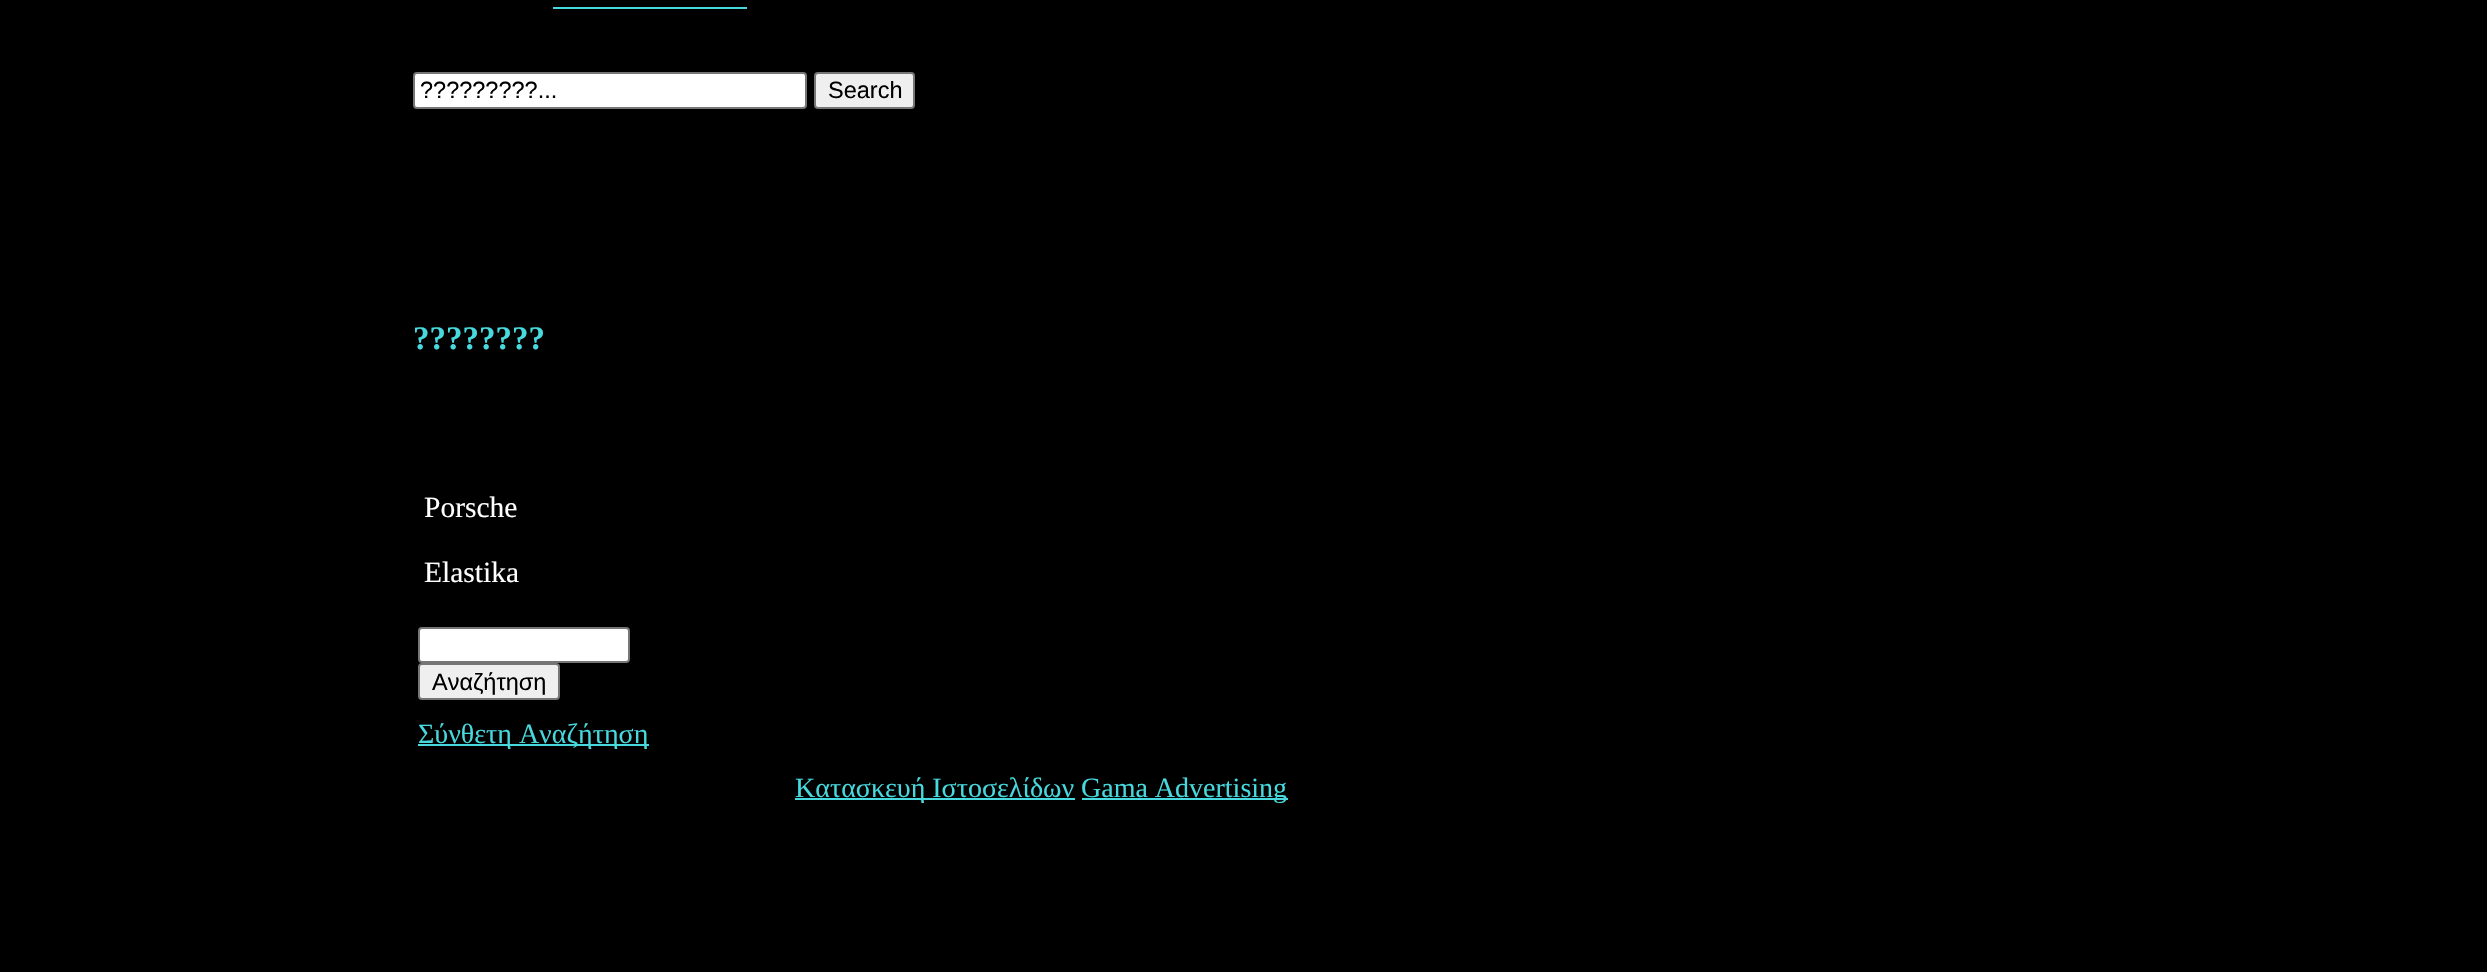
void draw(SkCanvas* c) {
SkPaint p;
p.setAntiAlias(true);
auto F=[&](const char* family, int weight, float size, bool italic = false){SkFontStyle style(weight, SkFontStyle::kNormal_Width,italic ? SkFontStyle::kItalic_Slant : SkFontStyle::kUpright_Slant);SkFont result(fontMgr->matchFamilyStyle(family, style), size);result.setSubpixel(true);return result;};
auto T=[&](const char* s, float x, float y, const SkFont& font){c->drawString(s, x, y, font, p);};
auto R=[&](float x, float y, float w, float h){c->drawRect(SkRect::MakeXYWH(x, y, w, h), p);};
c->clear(0xff000000);
p.setColor(0xff47d9de);
R(553,7,194,2);
p.setColor(0xffffffff);
c->drawRoundRect(SkRect::MakeXYWH(414,73,392,35),3,3,p);
p.setStroke(true);
p.setStrokeWidth(2);
p.setColor(0xff767676);
c->drawRoundRect(SkRect::MakeXYWH(414,73,392,35),3,3,p);
auto f1 = F("Liberation Sans",400,23.5);
p.setStroke(false);
p.setColor(0xff000000);
T("?\077?\077?\077?\077?...",420,98,f1);
p.setColor(0xffefefef);
c->drawRoundRect(SkRect::MakeXYWH(815,73,99,35),3,3,p);
p.setStroke(true);
p.setColor(0xff767676);
c->drawRoundRect(SkRect::MakeXYWH(815,73,99,35),3,3,p);
p.setStroke(false);
p.setColor(0xff000000);
T("Search",828,98,f1);
auto f2 = F("Liberation Serif",700,33);
p.setColor(0xff47d9de);
T("?\077?\077?\077?\077",413,349,f2);
auto f3 = F("Liberation Serif",400,29.5);
p.setColor(0xffffffff);
T("Porsche",424,517,f3);
T("Elastika",424,582,f3);
c->drawRoundRect(SkRect::MakeXYWH(419,628,210,34),3,3,p);
p.setStroke(true);
p.setColor(0xff767676);
c->drawRoundRect(SkRect::MakeXYWH(419,628,210,34),3,3,p);
p.setStroke(false);
p.setColor(0xffefefef);
c->drawRoundRect(SkRect::MakeXYWH(419,664,140,35),3,3,p);
p.setStroke(true);
p.setColor(0xff767676);
c->drawRoundRect(SkRect::MakeXYWH(419,664,140,35),3,3,p);
p.setStroke(false);
p.setColor(0xff000000);
T("Αναζήτηση",432,690,f1);
p.setColor(0xff47d9de);
R(418,744,231,2);
auto f4 = F("Liberation Serif",400,28);
T("Σύνθετη Αναζήτηση",418,743,f4);
R(795,798,280,2);
T("Κατασκευή Ιστοσελίδων",795,797,f4);
R(1082,798,206,2);
T("Gama Advertising",1081,797,f4);
}
